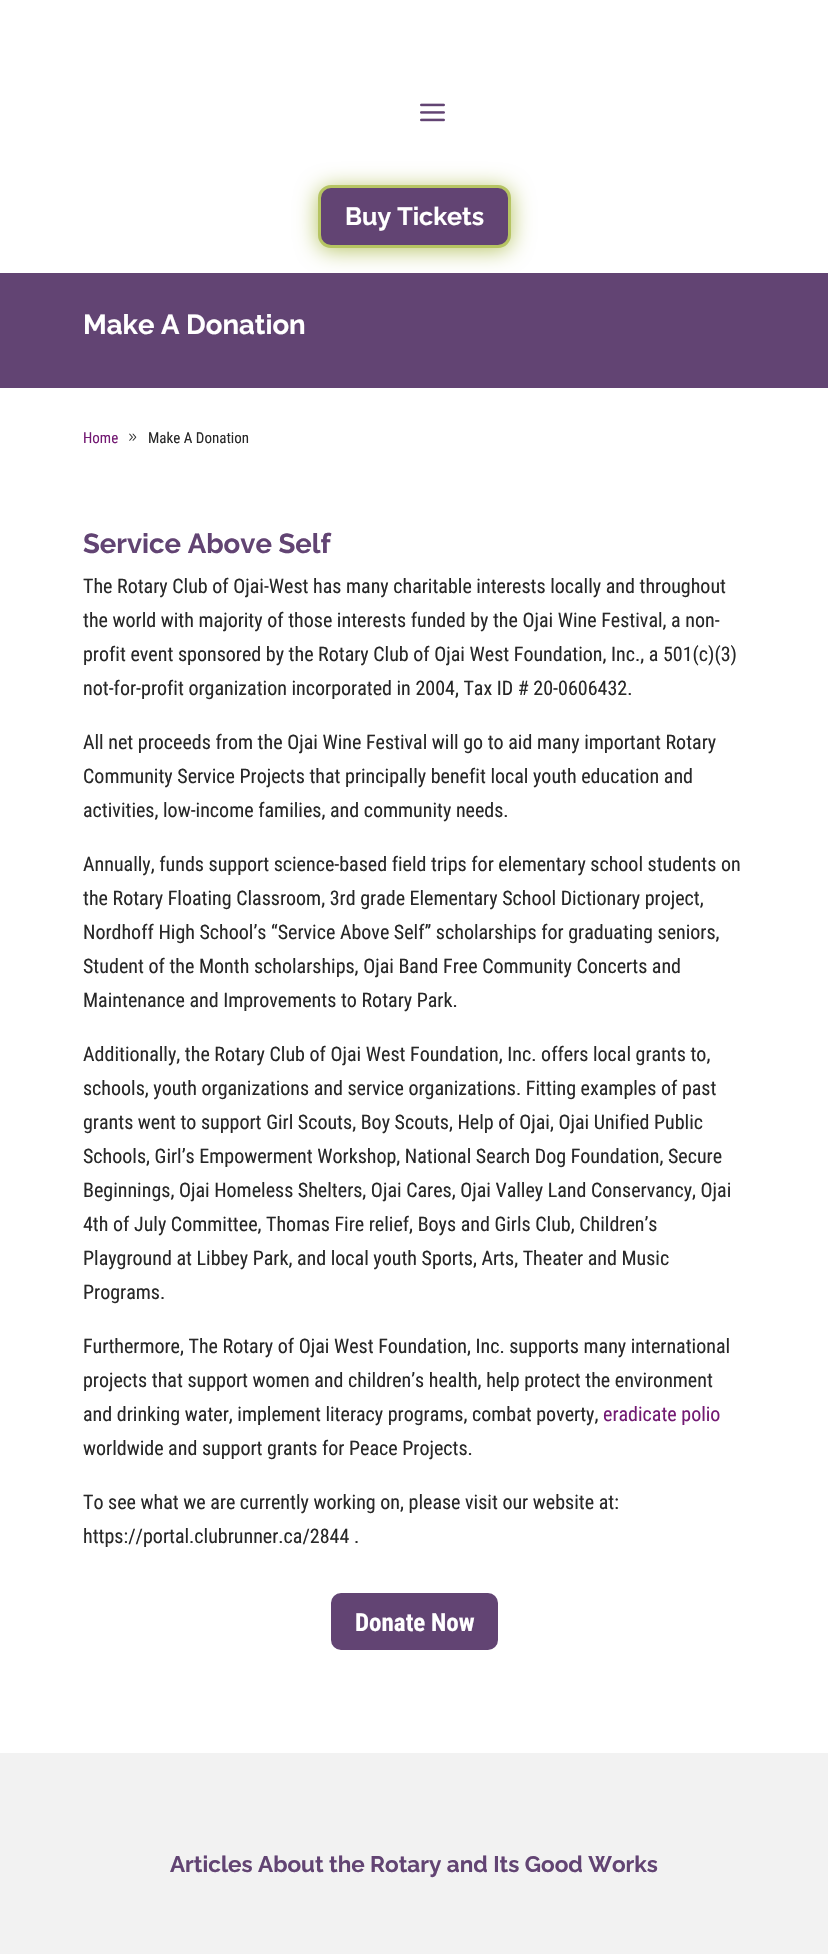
void draw(SkCanvas* c) {
SkPaint p;
p.setAntiAlias(true);
auto F=[&](const char* family, int weight, float size, bool italic = false){SkFontStyle style(weight, SkFontStyle::kNormal_Width,italic ? SkFontStyle::kItalic_Slant : SkFontStyle::kUpright_Slant);SkFont result(fontMgr->matchFamilyStyle(family, style), size);result.setSubpixel(true);return result;};
auto T=[&](const char* s, float x, float y, const SkFont& font){c->drawString(s, x, y, font, p);};
auto R=[&](float x, float y, float w, float h){c->drawRect(SkRect::MakeXYWH(x, y, w, h), p);};
auto I=[&](const char* path, float x, float y, float w, float h){auto image = SkImages::DeferredFromEncodedData(SkData::MakeFromFileName(path));c->drawImageRect(image, SkRect::MakeXYWH(x, y, w, h), SkSamplingOptions());};
c->clear(0xffffffff);
I("1.png",420,103,25,19);
p.setColor(0xff624473);
R(0,273,828,115);
p.setColor(0xffb6c462);
p.setMaskFilter(SkMaskFilter::MakeBlur(kNormal_SkBlurStyle, 11));
c->drawRoundRect(SkRect::MakeXYWH(318,188,193,62),13,13,p);
p.setMaskFilter(nullptr);
p.setColor(0xff624473);
c->drawRoundRect(SkRect::MakeXYWH(319.5,186.5,190,60),11.5,11.5,p);
p.setStroke(true);
p.setStrokeWidth(3);
p.setColor(0xffb6c462);
c->drawRoundRect(SkRect::MakeXYWH(319.5,186.5,190,60),11.5,11.5,p);
auto f1 = F("Raleway",700,25);
p.setStroke(false);
p.setColor(0xffffffff);
T("Buy Tickets",345,225,f1);
auto f2 = F("Raleway",700,27.5);
T("Make A Donation",83,334,f2);
auto f3 = F("Roboto Condensed",400,15);
p.setColor(0xff731a73);
T("Home",83,443,f3);
I("2.png",129,433,8,8);
p.setColor(0xff282828);
T("Make A Donation",148,443,f3);
p.setColor(0xff624473);
T("Service Above Self",83,553,f2);
auto f4 = F("Roboto Condensed",400,20);
p.setColor(0xff282828);
T("The Rotary Club of Ojai-West has many charitable interests locally and throughout",83,593,f4);
T("the world with majority of those interests funded by the Ojai Wine Festival, a non-",83,627,f4);
T("profit event sponsored by the Rotary Club of Ojai West Foundation, Inc., a 501(c)(3)",83,661,f4);
T("not-for-profit organization incorporated in 2004, Tax ID # 20-0606432.",83,695,f4);
T("All net proceeds from the Ojai Wine Festival will go to aid many important Rotary",83,749,f4);
T("Community Service Projects that principally benefit local youth education and",83,783,f4);
T("activities, low-income families, and community needs.",83,817,f4);
T("Annually, funds support science-based field trips for elementary school students on",83,871,f4);
T("the Rotary Floating Classroom, 3rd grade Elementary School Dictionary project,",83,905,f4);
T("Nordhoff High School’s “Service Above Self” scholarships for graduating seniors,",83,939,f4);
T("Student of the Month scholarships, Ojai Band Free Community Concerts and",83,973,f4);
T("Maintenance and Improvements to Rotary Park.",83,1007,f4);
T("Additionally, the Rotary Club of Ojai West Foundation, Inc. offers local grants to,",83,1061,f4);
T("schools, youth organizations and service organizations. Fitting examples of past",83,1095,f4);
T("grants went to support Girl Scouts, Boy Scouts, Help of Ojai, Ojai Unified Public",83,1129,f4);
T("Schools, Girl’s Empowerment Workshop, National Search Dog Foundation, Secure",83,1163,f4);
T("Beginnings, Ojai Homeless Shelters, Ojai Cares, Ojai Valley Land Conservancy, Ojai",83,1197,f4);
T("4th of July Committee, Thomas Fire relief, Boys and Girls Club, Children’s",83,1231,f4);
T("Playground at Libbey Park, and local youth Sports, Arts, Theater and Music",83,1265,f4);
T("Programs.",83,1299,f4);
T("Furthermore, The Rotary of Ojai West Foundation, Inc. supports many international",83,1353,f4);
T("projects that support women and children’s health, help protect the environment",83,1387,f4);
T("and drinking water, implement literacy programs, combat poverty,",83,1421,f4);
p.setColor(0xff731a73);
T("eradicate polio",603,1421,f4);
p.setColor(0xff282828);
T("worldwide and support grants for Peace Projects.",83,1455,f4);
T("To see what we are currently working on, please visit our website at:",83,1509,f4);
T("https://portal.clubrunner.ca/2844 .",83,1543,f4);
p.setColor(0xff624473);
c->drawRoundRect(SkRect::MakeXYWH(329.5,1591.5,170,60),11.5,11.5,p);
p.setStroke(true);
p.setColor(0xffffffff);
c->drawRoundRect(SkRect::MakeXYWH(329.5,1591.5,170,60),11.5,11.5,p);
auto f5 = F("Roboto Condensed",700,25);
p.setStroke(false);
T("Donate Now",355,1631,f5);
p.setColor(0xfff2f2f2);
R(0,1753,828,201);
auto f6 = F("Raleway",700,22.5);
p.setColor(0xff624473);
T("Articles About the Rotary and Its Good Works",170,1872,f6);
}
